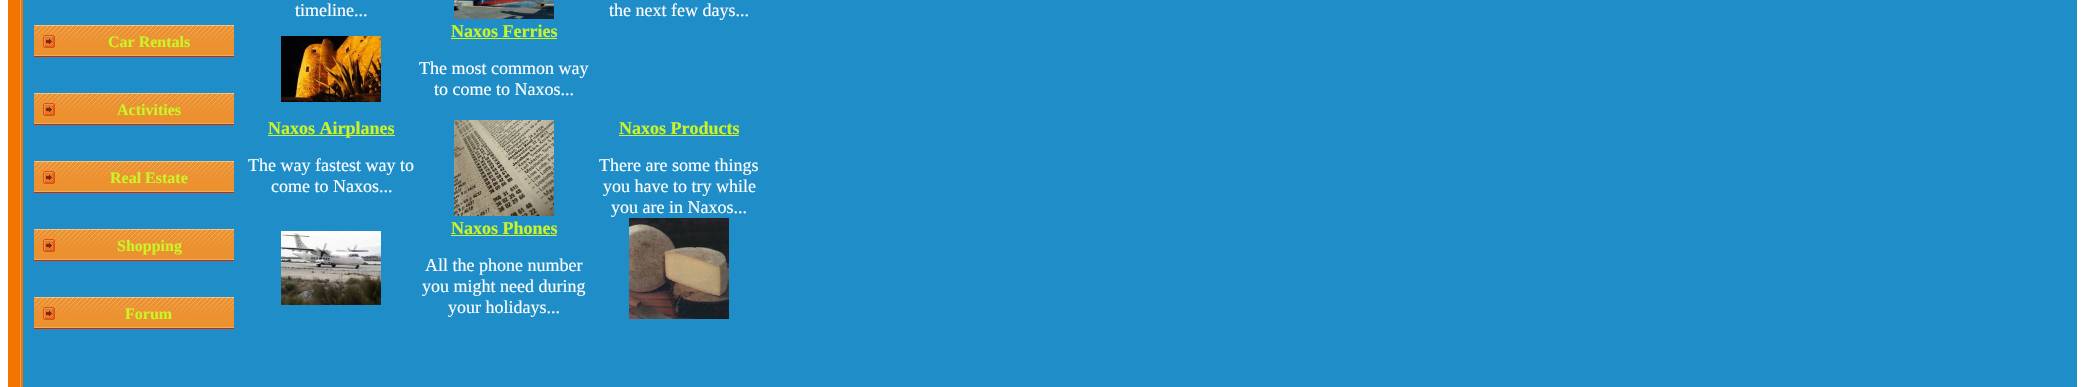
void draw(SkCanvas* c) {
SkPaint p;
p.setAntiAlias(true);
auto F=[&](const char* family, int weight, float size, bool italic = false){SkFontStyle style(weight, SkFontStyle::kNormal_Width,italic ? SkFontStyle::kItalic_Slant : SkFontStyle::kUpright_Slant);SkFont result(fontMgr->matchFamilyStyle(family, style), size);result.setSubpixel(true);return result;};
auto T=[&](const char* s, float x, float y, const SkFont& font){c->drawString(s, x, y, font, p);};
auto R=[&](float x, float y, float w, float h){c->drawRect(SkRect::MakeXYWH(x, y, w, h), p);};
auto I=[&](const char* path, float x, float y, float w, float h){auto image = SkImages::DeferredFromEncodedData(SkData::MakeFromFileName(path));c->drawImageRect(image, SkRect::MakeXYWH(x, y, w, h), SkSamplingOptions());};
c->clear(0xffffffff);
p.setColor(0xff1f8ec8);
R(23,0,2054,387);
I("1.png",8,0,15,387);
I("2.png",34,25,200,32);
auto f1 = F("Liberation Serif",700,16);
p.setColor(0xffcaf328);
T("Car Rentals",108,47,f1);
I("2.png",34,93,200,32);
T("Activities",117,115,f1);
I("2.png",34,161,200,32);
T("Real Estate",110,183,f1);
I("2.png",34,229,200,32);
T("Shopping",117,251,f1);
I("2.png",34,297,200,32);
T("Forum",125,319,f1);
auto f2 = F("Liberation Serif",400,18);
p.setColor(0xffffffff);
T("timeline...",295,16,f2);
I("3.png",454,0,100,19);
T("the next few days...",609,16,f2);
I("4.png",281,36,100,66);
auto f3 = F("Liberation Serif",700,18);
p.setColor(0xffcaf328);
T("Naxos Ferries",451,37,f3);
R(451,38,106,1);
p.setColor(0xffffffff);
T("The most common way",419,74,f2);
T("to come to Naxos...",434,95,f2);
p.setColor(0xffcaf328);
R(268,135,127,1);
T("Naxos Airplanes",268,134,f3);
p.setColor(0xffffffff);
T("The way fastest way to",248,171,f2);
T("come to Naxos...",271,192,f2);
I("5.png",454,120,100,96);
p.setColor(0xffcaf328);
T("Naxos Products",619,134,f3);
R(619,135,120,1);
p.setColor(0xffffffff);
T("There are some things",599,171,f2);
T("you have to try while",603,192,f2);
T("you are in Naxos...",611,213,f2);
I("6.png",281,231,100,74);
p.setColor(0xffcaf328);
T("Naxos Phones",451,234,f3);
R(451,235,106,1);
p.setColor(0xffffffff);
T("All the phone number",425,271,f2);
T("you might need during",422,292,f2);
T("your holidays...",448,313,f2);
I("7.png",629,218,100,101);
}
